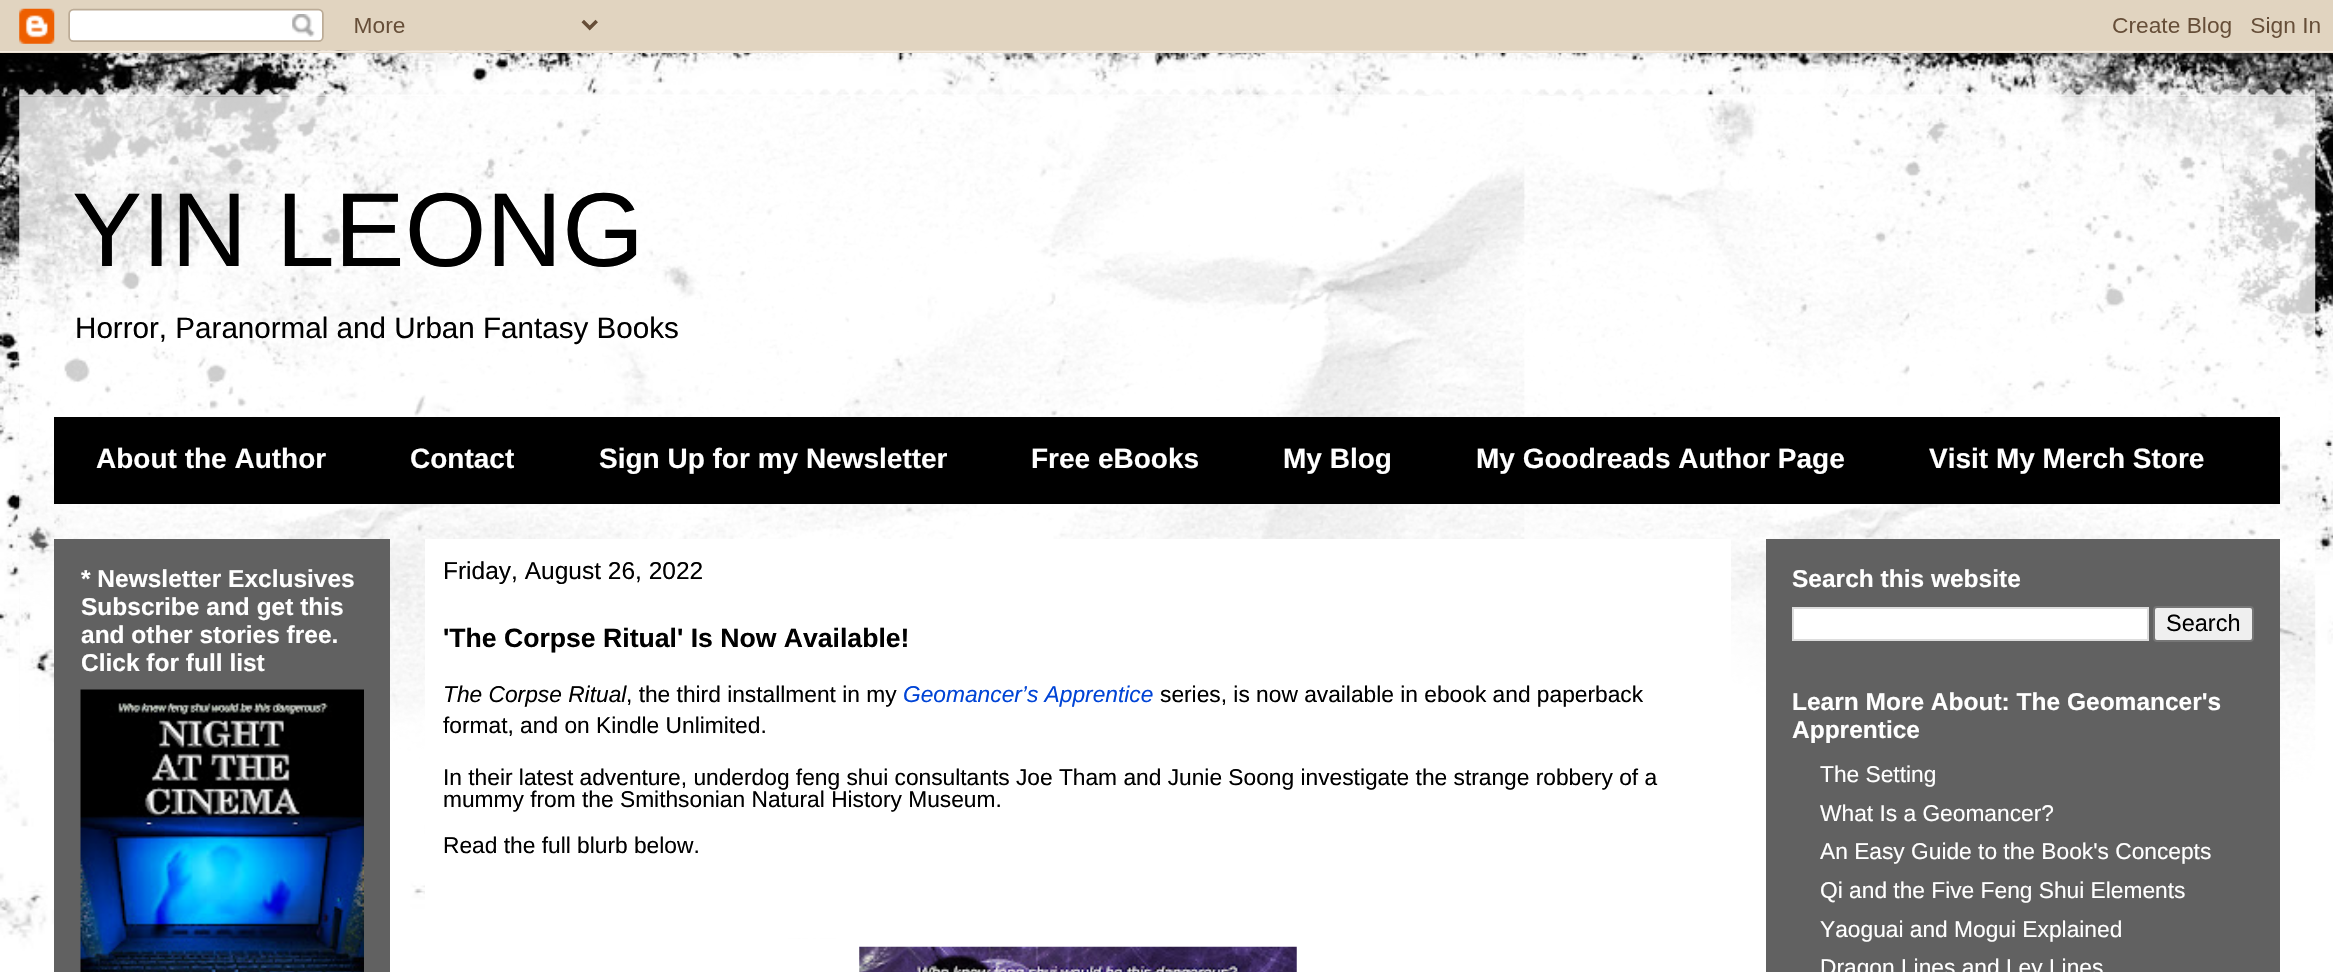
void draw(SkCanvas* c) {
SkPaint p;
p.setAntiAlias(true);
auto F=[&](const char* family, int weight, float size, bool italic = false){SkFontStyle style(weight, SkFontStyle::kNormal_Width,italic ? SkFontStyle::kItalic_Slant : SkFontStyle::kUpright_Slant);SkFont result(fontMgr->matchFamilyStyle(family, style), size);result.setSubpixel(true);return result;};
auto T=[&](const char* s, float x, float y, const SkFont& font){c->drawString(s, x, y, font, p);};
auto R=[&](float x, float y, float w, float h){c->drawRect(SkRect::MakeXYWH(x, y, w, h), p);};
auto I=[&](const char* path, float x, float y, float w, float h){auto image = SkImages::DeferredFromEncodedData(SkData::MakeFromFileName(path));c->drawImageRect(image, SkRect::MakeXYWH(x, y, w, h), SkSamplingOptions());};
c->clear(0xffffffff);
I("1.png",0,50,2333,922);
I("2.png",0,0,2333,53);
I("3.png",19,88,2297,9);
I("4.png",19,96,2297,686);
auto f1 = F("Liberation Sans",400,105);
p.setColor(0xff000000);
T("YIN LEONG",72,266,f1);
auto f2 = F("Liberation Sans",400,29.6);
T("Horror, Paranormal and Urban Fantasy Books",75,338,f2);
R(54,417,2226,87);
auto f3 = F("Liberation Sans",700,28);
p.setColor(0xffffffff);
T("About the Author",96,468,f3);
T("Contact",410,468,f3);
T("Sign Up for my Newsletter",599,468,f3);
T("Free eBooks",1031,468,f3);
T("My Blog",1283,468,f3);
T("My Goodreads Author Page",1476,468,f3);
T("Visit My Merch Store",1929,468,f3);
p.setColor(0xff616161);
R(54,539,336,433);
R(1766,539,514,433);
auto f4 = F("Liberation Sans",700,24.5);
p.setColor(0xffffffff);
T("* Newsletter Exclusives",81,587,f4);
T("Subscribe and get this",81,615,f4);
T("and other stories free.",81,643,f4);
T("Click for full list",81,671,f4);
I("5.png",80,689,284,283);
R(425,539,1306,399);
auto f5 = F("Liberation Sans",400,24.5);
p.setColor(0xff000000);
T("Friday, August 26, 2022",443,579,f5);
auto f6 = F("Liberation Sans",700,26.6);
T("'The Corpse Ritual' Is Now Available!",443,647,f6);
auto f7 = F("Liberation Sans",400,22.75,true);
T("The Corpse Ritual",443,702,f7);
auto f8 = F("Liberation Sans",400,22.75);
T(", the third installment in my",626,702,f8);
p.setColor(0xff0044d6);
T("Geomancer’s Apprentice",903,702,f7);
p.setColor(0xff000000);
T("series, is now available in ebook and paperback",1160,702,f8);
T("format, and on Kindle Unlimited.",443,733,f8);
T("In their latest adventure, underdog feng shui consultants Joe Tham and Junie Soong investigate the strange robbery of a",443,785,f8);
T("mummy from the Smithsonian Natural History Museum.",443,807,f8);
T("Read the full blurb below.",443,853,f8);
I("6.png",859,946,438,26);
p.setColor(0xffffffff);
T("Search this website",1792,587,f4);
c->drawRect(SkRect::MakeXYWH(1793,608,355,32),p);
p.setStroke(true);
p.setStrokeWidth(2);
p.setColor(0xffdddddd);
c->drawRect(SkRect::MakeXYWH(1793,608,355,32),p);
p.setStroke(false);
p.setColor(0xffefefef);
c->drawRoundRect(SkRect::MakeXYWH(2154,607,99,34),3,3,p);
p.setStroke(true);
p.setColor(0xff767676);
c->drawRoundRect(SkRect::MakeXYWH(2154,607,99,34),3,3,p);
auto f9 = F("Liberation Sans",400,23.5);
p.setStroke(false);
p.setColor(0xff000000);
T("Search",2166,631,f9);
p.setColor(0xffffffff);
T("Learn More About: The Geomancer's",1792,710,f4);
T("Apprentice",1792,738,f4);
T("The Setting",1820,782,f8);
T("What Is a Geomancer?",1820,821,f8);
T("An Easy Guide to the Book's Concepts",1820,859,f8);
T("Qi and the Five Feng Shui Elements",1820,898,f8);
T("Yaoguai and Mogui Explained",1820,937,f8);
T("Dragon Lines and Ley Lines",1820,975,f8);
}
